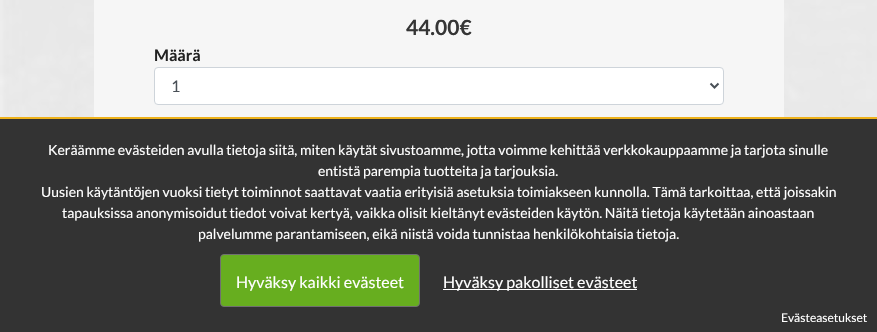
void draw(SkCanvas* c) {
SkPaint p;
p.setAntiAlias(true);
auto F=[&](const char* family, int weight, float size, bool italic = false){SkFontStyle style(weight, SkFontStyle::kNormal_Width,italic ? SkFontStyle::kItalic_Slant : SkFontStyle::kUpright_Slant);SkFont result(fontMgr->matchFamilyStyle(family, style), size);result.setSubpixel(true);return result;};
auto T=[&](const char* s, float x, float y, const SkFont& font){c->drawString(s, x, y, font, p);};
auto R=[&](float x, float y, float w, float h){c->drawRect(SkRect::MakeXYWH(x, y, w, h), p);};
auto I=[&](const char* path, float x, float y, float w, float h){auto image = SkImages::DeferredFromEncodedData(SkData::MakeFromFileName(path));c->drawImageRect(image, SkRect::MakeXYWH(x, y, w, h), SkSamplingOptions());};
auto P=[&](const char* data, bool evenOdd = false){SkPath result = *SkParsePath::FromSVGString(data);if (evenOdd) result.setFillType(SkPathFillType::kEvenOdd);return result;};
c->clear(0xffffffff);
I("1.png",0,0,877,117);
p.setColor(0xfff6f6f6);
R(94,0,690,117);
auto f1 = F("Lato",700,21);
p.setColor(0xff353535);
T("44.00€",406,35,f1);
auto f2 = F("Lato",700,16);
p.setColor(0xff222222);
T("Määrä",154,61,f2);
p.setColor(0xffffffff);
c->drawRoundRect(SkRect::MakeXYWH(154.5,67.5,569,37),3.5,3.5,p);
p.setStroke(true);
p.setStrokeWidth(1);
p.setColor(0xffced4da);
c->drawRoundRect(SkRect::MakeXYWH(154.5,67.5,569,37),3.5,3.5,p);
p.setStrokeWidth(2);
p.setColor(0xff495057);
c->drawPath(P("M710.5 83.5l4 4l4-4"),p);
auto f3 = F("Lato",400,16);
p.setStroke(false);
T("1",171,92,f3);
p.setColor(0xff333333);
R(0,119,877,213);
p.setColor(0xffeeb21c);
R(0,117,877,2);
auto f4 = F("Lato",400,14);
p.setColor(0xffffffff);
T("Keräämme evästeiden avulla tietoja siitä, miten käytät sivustoamme, jotta voimme kehittää verkkokauppaamme ja tarjota sinulle",48,155,f4);
T("entistä parempia tuotteita ja tarjouksia.",318,176,f4);
T("Uusien käytäntöjen vuoksi tietyt toiminnot saattavat vaatia erityisiä asetuksia toimiakseen kunnolla. Tämä tarkoittaa, että joissakin",41,197,f4);
T("tapauksissa anonymisoidut tiedot voivat kertyä, vaikka olisit kieltänyt evästeiden käytön. Näitä tietoja käytetään ainoastaan",62,218,f4);
T("palvelumme parantamiseen, eikä niistä voida tunnistaa henkilökohtaisia tietoja.",198,239,f4);
p.setColor(0xff67ae1f);
c->drawRoundRect(SkRect::MakeXYWH(220.5,254.5,199,52),3.5,3.5,p);
p.setStroke(true);
p.setStrokeWidth(1);
p.setColor(0xff707070);
c->drawRoundRect(SkRect::MakeXYWH(220.5,254.5,199,52),3.5,3.5,p);
p.setStroke(false);
p.setColor(0xffffffff);
T("Hyväksy kaikki evästeet",236,288,f3);
R(443,289,194,1);
T("Hyväksy pakolliset evästeet",443,288,f3);
auto f5 = F("Lato",400,12);
T("Evästeasetukset",781,322,f5);
}
